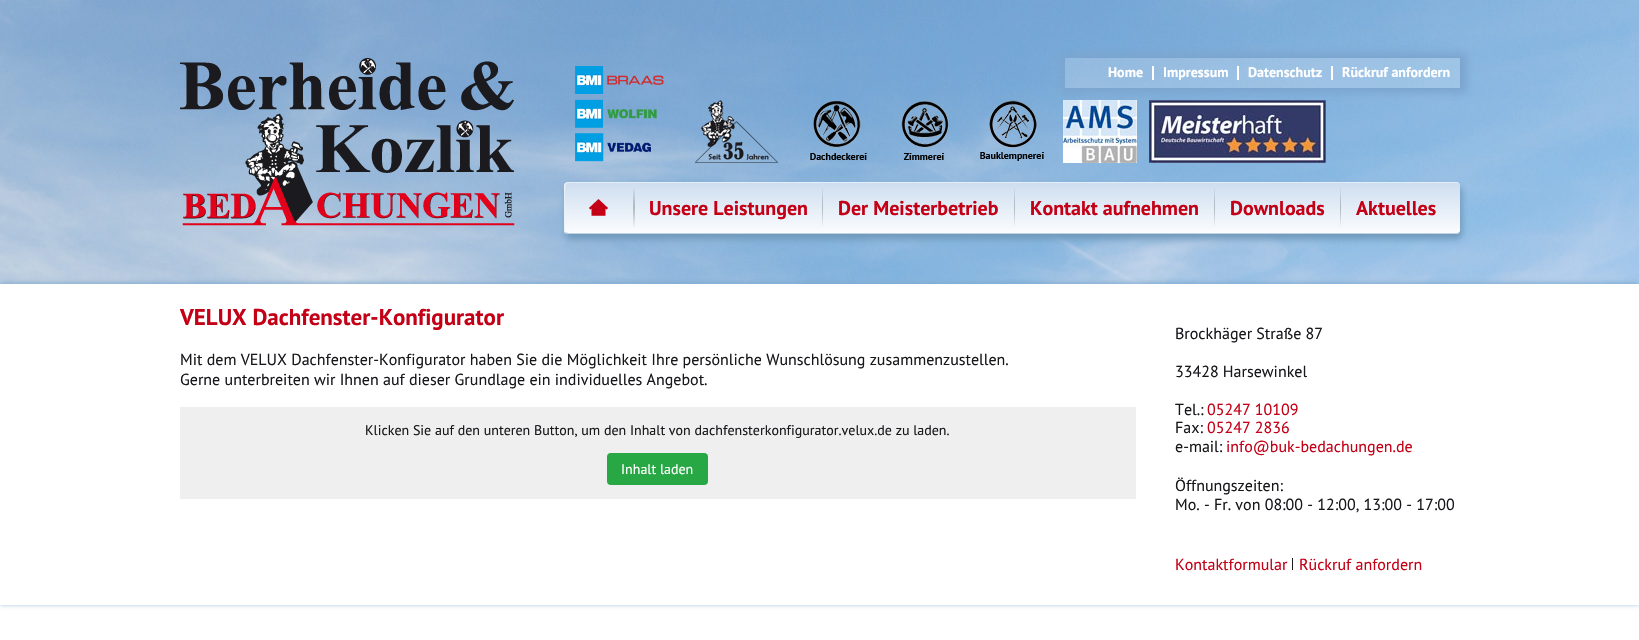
void draw(SkCanvas* c) {
SkPaint p;
p.setAntiAlias(true);
auto F=[&](const char* family, int weight, float size, bool italic = false){SkFontStyle style(weight, SkFontStyle::kNormal_Width,italic ? SkFontStyle::kItalic_Slant : SkFontStyle::kUpright_Slant);SkFont result(fontMgr->matchFamilyStyle(family, style), size);result.setSubpixel(true);return result;};
auto T=[&](const char* s, float x, float y, const SkFont& font){c->drawString(s, x, y, font, p);};
auto R=[&](float x, float y, float w, float h){c->drawRect(SkRect::MakeXYWH(x, y, w, h), p);};
auto Q=[&](float x, float y, float w, float h, float radius){c->drawRoundRect(SkRect::MakeXYWH(x, y, w, h), radius, radius, p);};
auto I=[&](const char* path, float x, float y, float w, float h){auto image = SkImages::DeferredFromEncodedData(SkData::MakeFromFileName(path));c->drawImageRect(image, SkRect::MakeXYWH(x, y, w, h), SkSamplingOptions());};
auto P=[&](const char* data, bool evenOdd = false){SkPath result = *SkParsePath::FromSVGString(data);if (evenOdd) result.setFillType(SkPathFillType::kEvenOdd);return result;};
c->clear(0xffffffff);
I("1.png",0,0,1639,284);
I("2.png",180,58,335,168);
I("3.png",575,66,89,96);
I("4.png",695,100,83,63);
I("5.png",810,101,57,59);
I("6.png",901,101,48,59);
I("7.png",980,100,64,61);
c->save();
c->clipPath(P("M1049 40h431v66h-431zm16 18h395v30h-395z",true),true);
p.setColor(0xff7ba5cf);
p.setMaskFilter(SkMaskFilter::MakeBlur(kNormal_SkBlurStyle, 4));
c->drawRect(SkRect::MakeXYWH(1062,53,405,40),p);
p.setMaskFilter(nullptr);
c->restore();
I("8.png",1063,100,74,63);
I("9.png",1149,100,177,63);
p.setColor(0x33ffffff);
R(1065,58,395,30);
auto f1 = F("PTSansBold",700,14);
p.setColor(0xffffffff);
T("Home",1108,77,f1);
R(1152,66,2,14);
T("Impressum",1163,77,f1);
R(1237,66,2,14);
T("Datenschutz",1248,77,f1);
R(1331,66,2,14);
T("Rückruf anfordern",1342,77,f1);
p.setColor(0xff6f98ba);
p.setMaskFilter(SkMaskFilter::MakeBlur(kNormal_SkBlurStyle, 3.5));
c->drawRoundRect(SkRect::MakeXYWH(566,187,896,52),4,4,p);
p.setMaskFilter(nullptr);
p.setColor(0xffcedef0);
Q(564,182,896,52,4);
c->save();
c->clipPath(P("M568 182h888c2 0 4 2 4 4v44c0 2-2 4-4 4h-888c-2 0-4-2-4-4v-44c0-2 2-4 4-4z"),true);
{
const SkColor colors[] = {0xffcedef0,0xfffbfcfe};
const float stops[] = {0,1};
const SkPoint ends[] = {{1013,183}, {1013,233}};
p.setShader(SkGradientShader::MakeLinear(ends, colors, stops, 2, SkTileMode::kClamp));
p.setAlpha(255);
}
R(564,183,896,50);
c->restore();
p.setShader(nullptr);
p.setColor(0xffe4eff9);
c->drawPath(P("M568 182l-3 1l1 1l2-1h888c2 0 4 1 4 3c0-2-2-4-4-4z"),p);
p.setColor(0xffc1d4e3);
c->drawPath(P("M568 234h888c2 0 4-2 4-4c0 2-2 3-4 3h-888l-2-1l-1 1z"),p);
p.setColor(0xffedf3f9);
c->drawPath(P("M564 186v44c0 1 0 2 1 3l1-1c-2-1-2-47 0-48l-1-1z"),p);
I("10.png",589,199,19,17);
I("11.png",633,188,2,39);
auto f2 = F("PTSansBold",700,20);
p.setColor(0xffc40017);
T("Unsere Leistungen",649,215,f2);
I("12.png",822,188,1,39);
T("Der Meisterbetrieb",838,215,f2);
I("12.png",1014,188,1,39);
T("Kontakt aufnehmen",1030,215,f2);
I("12.png",1214,188,1,39);
T("Downloads",1230,215,f2);
I("12.png",1340,188,1,39);
T("Aktuelles",1356,215,f2);
c->save();
c->clipPath(P("M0 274h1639v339h-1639zm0 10h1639v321h-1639z",true),true);
p.setColor(0xff7fa9ce);
p.setMaskFilter(SkMaskFilter::MakeBlur(kNormal_SkBlurStyle, 2.5));
c->drawRect(SkRect::MakeXYWH(0,283,1639,321),p);
p.setMaskFilter(nullptr);
c->restore();
auto f3 = F("PTSansBold",700,23);
p.setColor(0xffc40017);
T("VELUX Dachfenster-Konfigurator",180,325,f3);
auto f4 = F("PT Sans",400,16);
p.setColor(0xff19171b);
T("Mit dem VELUX Dachfenster-Konfigurator haben Sie die Möglichkeit Ihre persönliche Wunschlösung zusammenzustellen.",180,365,f4);
T("Gerne unterbreiten wir Ihnen auf dieser Grundlage ein individuelles Angebot.",180,385,f4);
p.setColor(0xffefefef);
R(180,407,956,92);
auto f5 = F("PT Sans",400,14);
p.setColor(0xff19171b);
T("Klicken Sie auf den unteren Button, um den Inhalt von dachfensterkonfigurator.velux.de zu laden.",365,435,f5);
p.setColor(0xff28a745);
Q(607,453,101,32,4);
p.setColor(0xffffffff);
T("Inhalt laden",621,474,f5);
p.setColor(0xff19171b);
T("Brockhäger Straße 87",1175,339,f4);
T("33428 Harsewinkel",1175,377,f4);
T("Tel.:",1175,415,f4);
p.setColor(0xffc40017);
T("05247 10109",1207,415,f4);
p.setColor(0xff19171b);
T("Fax:",1175,433,f4);
p.setColor(0xffc40017);
T("05247 2836",1207,433,f4);
p.setColor(0xff19171b);
T("e-mail:",1175,452,f4);
p.setColor(0xffc40017);
T("info@buk-bedachungen.de",1226,452,f4);
p.setColor(0xff19171b);
T("Öffnungszeiten:",1175,491,f4);
T("Mo. - Fr. von 08:00 - 12:00, 13:00 - 17:00",1175,510,f4);
p.setColor(0xff1b1b1b);
R(1292,558,1,12);
p.setColor(0xffc40017);
T("Kontaktformular",1175,570,f4);
T("Rückruf anfordern",1299,570,f4);
}
